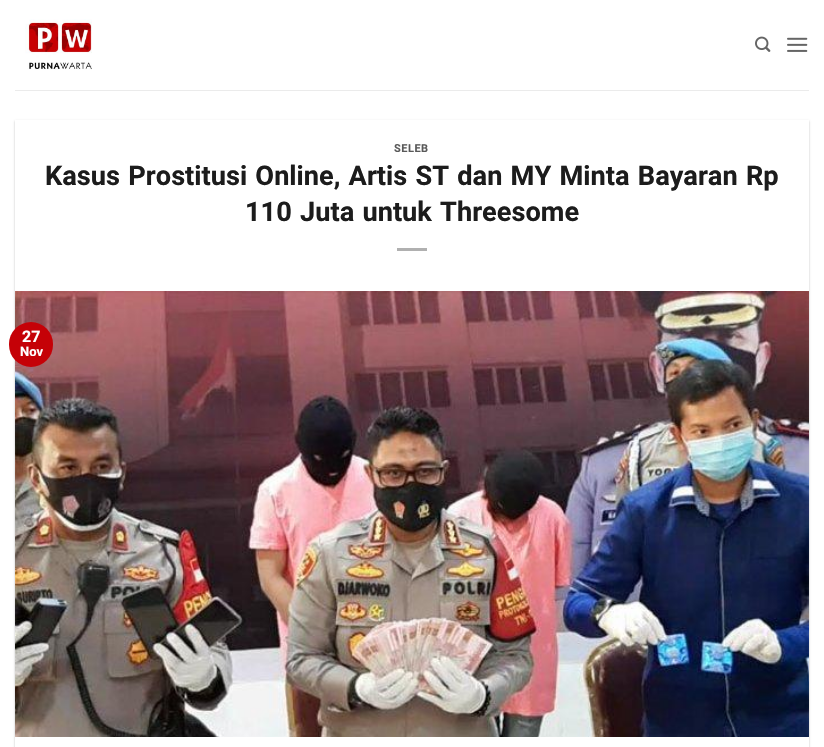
void draw(SkCanvas* c) {
SkPaint p;
p.setAntiAlias(true);
auto F=[&](const char* family, int weight, float size, bool italic = false){SkFontStyle style(weight, SkFontStyle::kNormal_Width,italic ? SkFontStyle::kItalic_Slant : SkFontStyle::kUpright_Slant);SkFont result(fontMgr->matchFamilyStyle(family, style), size);result.setSubpixel(true);return result;};
auto T=[&](const char* s, float x, float y, const SkFont& font){c->drawString(s, x, y, font, p);};
auto L=[&](const char* s, float x, float y, const SkFont& font, const SkPaint& ink, float letter, float word){std::vector<SkGlyphID> glyphs(font.countText(s, strlen(s), SkTextEncoding::kUTF8));std::vector<float> xs(glyphs.size());font.textToGlyphs(s, strlen(s), SkTextEncoding::kUTF8, glyphs);font.getXPos(glyphs, xs, x);float extra = 0;for (size_t i = 0; i < glyphs.size(); i++) {xs[i] += extra;extra += letter + word * (glyphs[i] == font.unicharToGlyph(' '));}c->drawTextBlob(SkTextBlob::MakeFromPosHGlyphs(glyphs, xs, y, font), 0, 0, ink);};
auto R=[&](float x, float y, float w, float h){c->drawRect(SkRect::MakeXYWH(x, y, w, h), p);};
auto Q=[&](float x, float y, float w, float h, float radius){c->drawRoundRect(SkRect::MakeXYWH(x, y, w, h), radius, radius, p);};
auto I=[&](const char* path, float x, float y, float w, float h){auto image = SkImages::DeferredFromEncodedData(SkData::MakeFromFileName(path));c->drawImageRect(image, SkRect::MakeXYWH(x, y, w, h), SkSamplingOptions());};
auto P=[&](const char* data, bool evenOdd = false){SkPath result = *SkParsePath::FromSVGString(data);if (evenOdd) result.setFillType(SkPathFillType::kEvenOdd);return result;};
c->clear(0xffffffff);
I("1.png",25,19,67,51);
I("2.png",755,36,16,16);
I("3.png",787,37,21,15);
p.setColor(0xffebebeb);
R(15,90,794,1);
c->save();
c->clipPath(P("M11 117h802v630h-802zm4 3h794v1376h-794z",true),true);
p.setColor(0x3d000000);
p.setMaskFilter(SkMaskFilter::MakeBlur(kNormal_SkBlurStyle, 1));
c->drawRect(SkRect::MakeXYWH(15,121,794,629),p);
p.setMaskFilter(nullptr);
c->restore();
auto f1 = F("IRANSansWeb",700,11);
p.setColor(0xff595959);
L("SELEB",394,152,f1,p,.5,0);
auto f2 = F("IRANSansWeb",700,27.2);
p.setColor(0xff1c1c1c);
T("Kasus Prostitusi Online, Artis ST dan MY Minta Bayaran Rp",45,185,f2);
T("110 Juta untuk Threesome",245,221,f2);
p.setColor(0xffb0b0b0);
R(397,248,30,3);
I("4.png",15,291,794,446);
p.setColor(0xffc50107);
Q(9,322,44,45,22);
auto f3 = F("IRANSansWeb",700,16);
p.setColor(0xffffffff);
T("27",22,342,f3);
auto f4 = F("IRANSansWeb",700,13);
T("Nov",20,356,f4);
}
